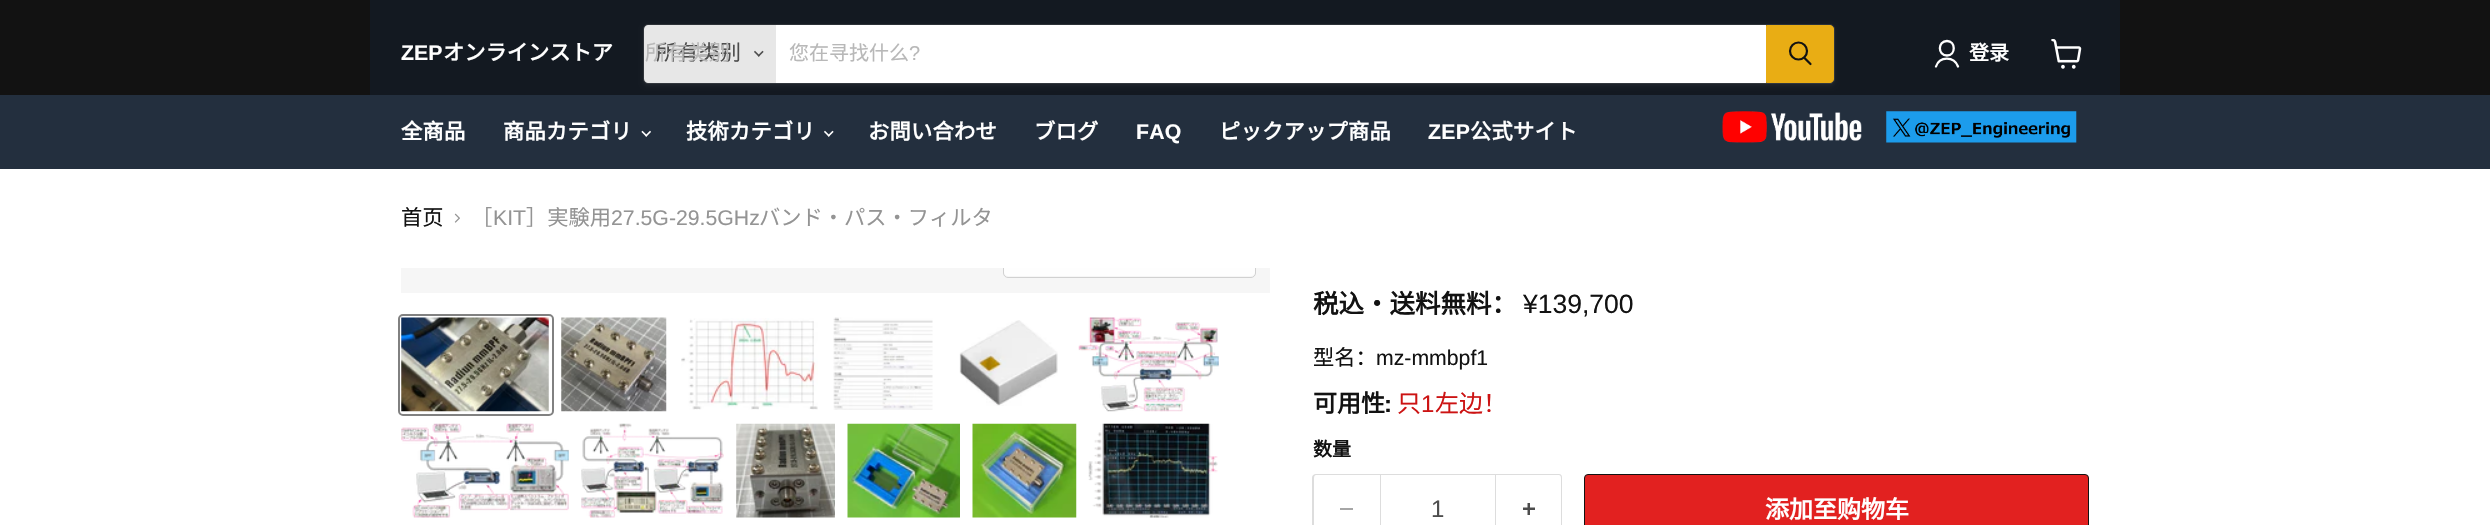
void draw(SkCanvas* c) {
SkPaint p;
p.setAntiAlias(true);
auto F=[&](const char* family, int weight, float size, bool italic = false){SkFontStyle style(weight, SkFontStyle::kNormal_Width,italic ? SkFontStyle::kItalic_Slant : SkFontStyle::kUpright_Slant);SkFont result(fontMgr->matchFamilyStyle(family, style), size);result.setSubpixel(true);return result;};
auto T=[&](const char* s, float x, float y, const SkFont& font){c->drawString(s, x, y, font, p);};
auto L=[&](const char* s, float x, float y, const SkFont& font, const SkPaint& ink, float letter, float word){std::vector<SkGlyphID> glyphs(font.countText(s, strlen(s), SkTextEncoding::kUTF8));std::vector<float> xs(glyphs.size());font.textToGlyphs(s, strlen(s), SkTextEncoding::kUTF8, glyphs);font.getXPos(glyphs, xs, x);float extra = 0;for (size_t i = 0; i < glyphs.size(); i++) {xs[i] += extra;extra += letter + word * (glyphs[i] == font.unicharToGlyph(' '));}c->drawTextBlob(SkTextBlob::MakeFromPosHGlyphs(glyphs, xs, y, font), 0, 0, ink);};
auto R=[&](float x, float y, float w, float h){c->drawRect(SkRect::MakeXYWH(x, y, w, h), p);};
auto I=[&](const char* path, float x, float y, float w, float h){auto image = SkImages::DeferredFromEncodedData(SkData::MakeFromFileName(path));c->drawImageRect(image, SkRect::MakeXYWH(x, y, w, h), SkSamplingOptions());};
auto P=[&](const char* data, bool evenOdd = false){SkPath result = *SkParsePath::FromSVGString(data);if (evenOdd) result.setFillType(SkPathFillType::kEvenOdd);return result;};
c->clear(0xffffffff);
p.setColor(0xff121212);
R(0,0,2490,95);
p.setColor(0xff131921);
R(370,0,1750,95);
auto f1 = F("Liberation Sans",700,21.25);
p.setColor(0xffffffff);
T("ZEP",401,60,f1);
auto f2 = F("Noto Sans CJK SC",700,21.25);
T("オンラインストア",443,60,f2);
p.setColor(0x1c808080);
p.setMaskFilter(SkMaskFilter::MakeBlur(kNormal_SkBlurStyle, 2));
c->drawRoundRect(SkRect::MakeXYWH(643,26,1192,60),5,5,p);
p.setMaskFilter(nullptr);
p.setStroke(true);
p.setStrokeWidth(1);
p.setColor(0x33808080);
c->drawRoundRect(SkRect::MakeXYWH(643.5,24.5,1191,59),4.5,4.5,p);
p.setStroke(false);
p.setColor(0xffe7e7e7);
c->drawPath(P("M648 25h128v58h-128c-2 0-4-2-4-4v-50c0-2 2-4 4-4z"),p);
auto f3 = F("Noto Sans CJK SC",400,21.25);
p.setColor(0xff4d4d4d);
T("所有类别",656,60,f3);
p.setColor(0xffb8b8b8);
T("所有类别",645,60,f3);
I("1.png",754,50,10,7);
p.setColor(0xffffffff);
R(776,25,990,58);
auto f4 = F("Noto Sans CJK SC",400,20);
p.setColor(0xffb8b8b8);
T("您在寻找什么",789,60,f4);
auto f5 = F("Liberation Sans",400,20);
T("?",909,60,f5);
p.setColor(0xffe9ad14);
c->drawPath(P("M1766.5 25.5h63.5c2 0 3.5 1.5 3.5 3.5v50c0 2-1.5 3.5-3.5 3.5h-63.5z"),p);
p.setStroke(true);
c->drawPath(P("M1766.5 25.5h63.5c2 0 3.5 1.5 3.5 3.5v50c0 2-1.5 3.5-3.5 3.5h-63.5z"),p);
p.setStrokeWidth(2.2);
p.setStrokeCap(SkPaint::kRound_Cap);
p.setColor(0xff121212);
c->drawPath(P("M1810.5 64l-6-6"),p);
p.setStrokeCap(SkPaint::kButt_Cap);
c->drawCircle(1798.5,51,8.5,p);
p.setStrokeWidth(2.3);
p.setStrokeCap(SkPaint::kRound_Cap);
p.setStrokeJoin(SkPaint::kRound_Join);
p.setColor(0xffffffff);
c->drawPath(P("M1947 55.5c9 0 9-14.5 0-14.5c-9.5 0-9.5 14.5 0 14.5zm11 11c-4-10.5-18.5-10.5-22 0"),p);
auto f6 = F("Noto Sans CJK SC",700,20);
p.setStroke(false);
T("登录",1969,60,f6);
I("2.png",2051,39,31,30);
p.setColor(0xff232f3e);
R(0,95,2490,74);
p.setColor(0xffffffff);
L("全商品",401,139,f2,p,.25,0);
L("商品カテゴリ",503,139,f2,p,.25,0);
I("3.png",641,130,10,7);
L("技術カテゴリ",686,139,f2,p,.25,0);
I("4.png",824,130,10,7);
L("お問い合わせ",868,139,f2,p,.25,0);
L("ブログ",1034,139,f2,p,.25,0);
L("FAQ",1136,139,f1,p,.25,0);
L("ピックアップ商品",1219,139,f2,p,.25,0);
L("ZEP",1428,139,f1,p,.25,0);
L("公式サイト",1470,139,f2,p,.25,0);
I("5.png",1722,111,140,32);
I("6.png",1886,111,191,32);
p.setColor(0xff121212);
T("首页",401,225,f3);
I("7.png",454,213,6,10);
p.setColor(0xff949494);
T("［",471,225,f3);
auto f7 = F("Liberation Sans",400,21.25);
T("KIT",493,225,f7);
T("］実験用",526,225,f3);
T("27.5G-29.5GHz",611,225,f7);
T("バンド・パス・フィルタ",759,225,f3);
p.setColor(0xfff6f6f6);
R(401,268,869,25);
c->save();
c->clipRect(SkRect::MakeXYWH(401,268,869,25));
p.setStroke(true);
p.setStrokeWidth(1);
p.setStrokeCap(SkPaint::kButt_Cap);
p.setStrokeJoin(SkPaint::kMiter_Join);
p.setColor(0xffd1d1d1);
c->drawRoundRect(SkRect::MakeXYWH(1003.5,239.5,252,38),4.5,4.5,p);
c->restore();
p.setStroke(false);
p.setColor(0xfffefefe);
c->drawPath(P("M1004 268h251v4c0 2-2 4-4 4h-243c-2 0-4-2-4-4z"),p);
p.setStroke(true);
p.setStrokeWidth(2);
p.setColor(0xff818181);
c->drawRoundRect(SkRect::MakeXYWH(399,315,154,100),4,4,p);
I("8.png",401,317,148,95);
I("9.png",561,317,106,95);
I("10.png",681,318,137,92);
I("11.png",833,317,100,93);
I("12.png",959,320,99,86);
I("13.png",1078,317,141,95);
I("14.png",401,423,168,95);
I("15.png",581,423,143,95);
I("16.png",736,423,99,95);
I("17.png",847,423,113,95);
I("18.png",972,423,105,95);
I("19.png",1088,423,130,95);
auto f8 = F("Noto Sans CJK SC",700,25.5);
p.setStroke(false);
p.setColor(0xff121212);
T("税込・送料無料：",1313,313,f8);
auto f9 = F("Liberation Sans",400,26.5);
T("¥139,700",1523,313,f9);
T("型名：",1313,365,f3);
T("mz-mmbpf1",1376,365,f7);
auto f10 = F("Noto Sans CJK SC",700,24);
T("可用性",1313,412,f10);
auto f11 = F("Liberation Sans",700,24);
T(":",1384,412,f11);
auto f12 = F("Noto Sans CJK SC",400,24);
p.setColor(0xffcc1313);
T("只",1397,412,f12);
auto f13 = F("Liberation Sans",400,24);
T("1",1421,412,f13);
T("左边！",1435,412,f12);
auto f14 = F("Noto Sans CJK SC",700,19);
p.setColor(0xff121212);
T("数量",1313,456,f14);
p.setColor(0xffdddddd);
c->drawPath(P("M1316 474h64v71h-64c-2 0-4-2-4-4v-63c0-3 2-4 4-4zm0 1h64v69h-64c-1 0-2-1-2-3v-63c0-2 1-3 2-3z",true),p);
p.setColor(0xffa6a6a6);
R(1340,508,13,2);
p.setStroke(true);
p.setStrokeWidth(1);
p.setColor(0xffdddddd);
c->drawRect(SkRect::MakeXYWH(1380.5,474.5,115,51),p);
p.setStroke(false);
p.setColor(0xff4d4d4d);
T("1",1431,517,f13);
p.setColor(0xffdddddd);
c->drawPath(P("M1496 474h63c2 0 3 1 3 4v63c0 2-1 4-3 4h-63zm0 1h63c1 0 2 1 2 3v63c0 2-1 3-2 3h-63z",true),p);
I("20.png",1523,503,12,12);
p.setColor(0xffe22120);
c->drawRoundRect(SkRect::MakeXYWH(1584.5,474.5,504,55),3.5,3.5,p);
p.setStroke(true);
p.setColor(0xff121212);
c->drawRoundRect(SkRect::MakeXYWH(1584.5,474.5,504,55),3.5,3.5,p);
p.setStroke(false);
p.setColor(0xffffffff);
T("添加至购物车",1765,518,f10);
}
